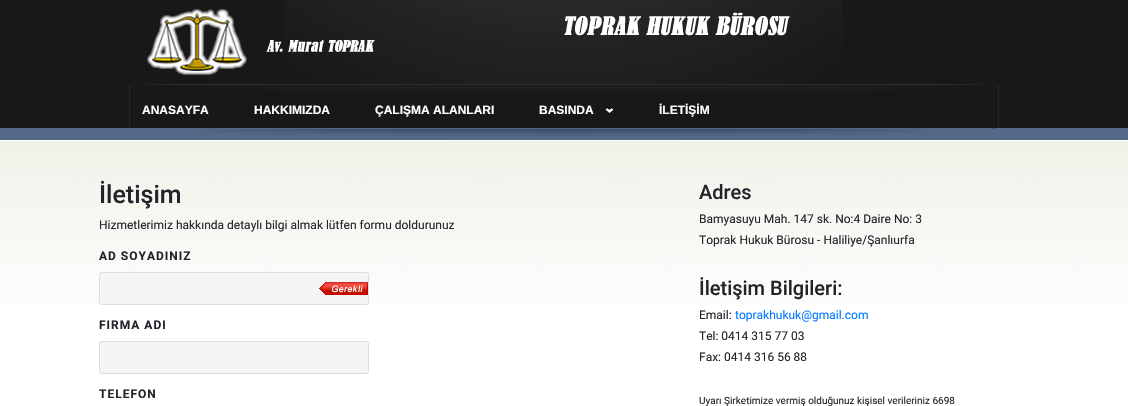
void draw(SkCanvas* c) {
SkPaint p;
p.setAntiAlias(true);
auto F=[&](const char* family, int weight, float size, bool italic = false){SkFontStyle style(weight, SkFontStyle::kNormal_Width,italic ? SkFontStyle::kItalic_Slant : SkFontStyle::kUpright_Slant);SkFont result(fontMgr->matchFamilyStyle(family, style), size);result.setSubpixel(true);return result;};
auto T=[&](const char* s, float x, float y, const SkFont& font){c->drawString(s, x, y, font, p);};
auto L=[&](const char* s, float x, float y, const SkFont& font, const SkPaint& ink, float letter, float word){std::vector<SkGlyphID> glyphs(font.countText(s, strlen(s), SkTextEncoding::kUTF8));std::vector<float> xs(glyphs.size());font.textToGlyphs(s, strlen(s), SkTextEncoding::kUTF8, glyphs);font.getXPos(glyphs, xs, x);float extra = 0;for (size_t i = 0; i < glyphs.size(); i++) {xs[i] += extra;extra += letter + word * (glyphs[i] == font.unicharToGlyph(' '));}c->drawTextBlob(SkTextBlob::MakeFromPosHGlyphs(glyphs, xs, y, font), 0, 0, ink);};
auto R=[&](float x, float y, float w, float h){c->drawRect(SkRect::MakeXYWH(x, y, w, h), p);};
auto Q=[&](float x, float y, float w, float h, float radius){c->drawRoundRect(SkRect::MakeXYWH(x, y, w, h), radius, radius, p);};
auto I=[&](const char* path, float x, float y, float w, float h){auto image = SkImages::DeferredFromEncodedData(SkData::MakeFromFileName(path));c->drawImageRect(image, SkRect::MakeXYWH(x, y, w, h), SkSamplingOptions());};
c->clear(0xffffffff);
p.setColor(0xff181818);
R(0,0,1128,128);
I("1.png",284,0,559,84);
I("2.png",147,9,643,66);
I("3.png",129,84,870,43);
auto f1 = F("Liberation Sans",700,12);
p.setColor(0xffffffff);
T("ANASAYFA",142,114,f1);
T("HAKKIMIZDA",254,114,f1);
T("ÇALIŞMA ALANLARI",375,114,f1);
I("4.png",605,107,9,6);
T("BASINDA",539,114,f1);
T("İLETİŞİM",659,114,f1);
p.setColor(0xff536987);
R(0,128,1128,12);
I("5.png",195,128,799,9);
I("6.png",0,141,1128,163);
auto f2 = F("Roboto",500,25);
p.setColor(0xff212529);
T("İletişim",99,203,f2);
auto f3 = F("Roboto",400,12);
T("Hizmetlerimiz hakkında detaylı bilgi almak lütfen formu doldurunuz",99,229,f3);
auto f4 = F("Roboto",700,12);
L("AD SOYADINIZ",99,260,f4,p,1,0);
p.setColor(0xfff5f5f5);
Q(99,272,270,33,3);
I("7.png",319,282,49,13);
p.setStroke(true);
p.setStrokeWidth(1);
p.setColor(0xffdddddd);
c->drawRoundRect(SkRect::MakeXYWH(99.5,272.5,269,32),2.5,2.5,p);
p.setStroke(false);
p.setColor(0xff212529);
L("FIRMA ADI",99,329,f4,p,1,0);
p.setColor(0xfff5f5f5);
c->drawRoundRect(SkRect::MakeXYWH(99.5,341.5,269,32),2.5,2.5,p);
p.setStroke(true);
p.setColor(0xffdddddd);
c->drawRoundRect(SkRect::MakeXYWH(99.5,341.5,269,32),2.5,2.5,p);
p.setStroke(false);
p.setColor(0xff212529);
L("TELEFON",99,398,f4,p,1,0);
auto f5 = F("Roboto",500,20);
T("Adres",699,199,f5);
T("Bamyasuyu Mah. 147 sk. No:4 Daire No: 3",699,223,f3);
T("Toprak Hukuk Bürosu - Haliliye/Şanlıurfa",699,244,f3);
T("İletişim Bilgileri:",699,295,f5);
T("Email:",699,319,f3);
p.setColor(0xff007bff);
T("toprakhukuk@gmail.com",735,319,f3);
p.setColor(0xff212529);
T("Tel: 0414 315 77 03",699,340,f3);
T("Fax: 0414 316 56 88",699,361,f3);
auto f6 = F("Roboto",400,10);
T("Uyarı Şirketimize vermiş olduğunuz kişisel verileriniz 6698",699,404,f6);
}
